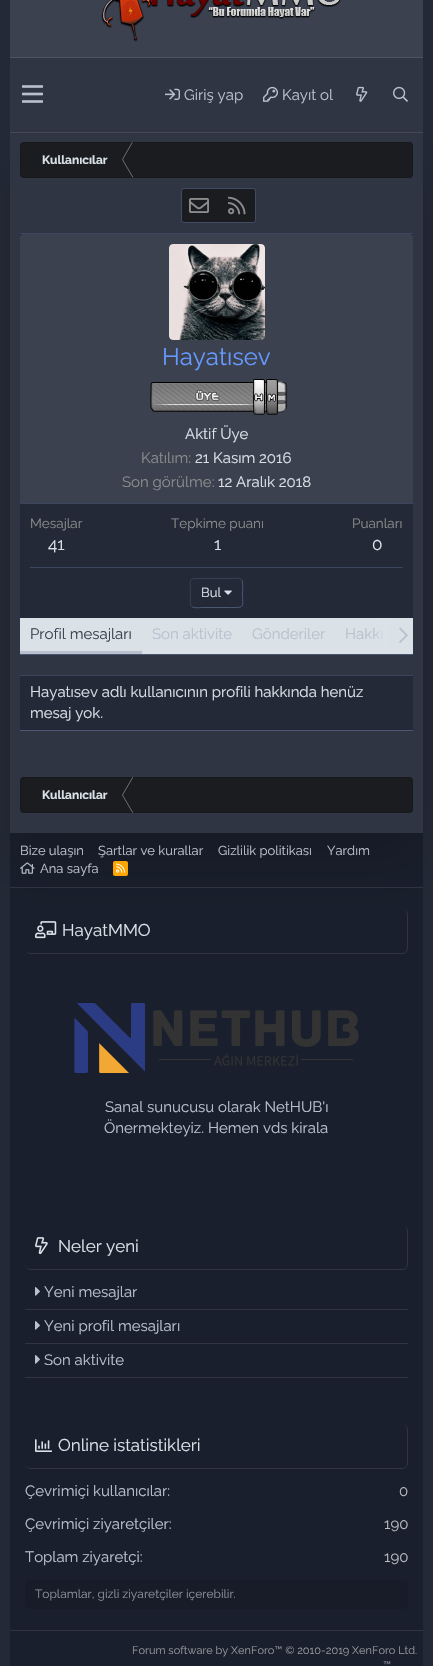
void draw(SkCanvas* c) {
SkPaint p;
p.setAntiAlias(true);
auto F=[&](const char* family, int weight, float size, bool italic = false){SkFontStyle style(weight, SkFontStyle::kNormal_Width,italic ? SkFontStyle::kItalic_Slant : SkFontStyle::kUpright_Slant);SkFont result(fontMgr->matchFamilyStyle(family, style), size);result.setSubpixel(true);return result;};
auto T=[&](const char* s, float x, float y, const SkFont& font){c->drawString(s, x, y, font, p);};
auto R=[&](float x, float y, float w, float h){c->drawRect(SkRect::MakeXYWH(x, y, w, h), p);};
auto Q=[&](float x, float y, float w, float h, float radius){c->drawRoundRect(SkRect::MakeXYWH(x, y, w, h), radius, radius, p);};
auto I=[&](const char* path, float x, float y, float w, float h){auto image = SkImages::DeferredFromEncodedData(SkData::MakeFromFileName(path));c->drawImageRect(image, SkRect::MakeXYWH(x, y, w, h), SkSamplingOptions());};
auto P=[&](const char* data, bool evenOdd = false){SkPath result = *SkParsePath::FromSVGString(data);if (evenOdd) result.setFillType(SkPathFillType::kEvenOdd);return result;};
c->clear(0xff232936);
p.setColor(0xff3b414f);
R(10,0,413,57);
p.setColor(0xff4f5461);
R(10,57,413,1);
I("1.png",101,0,240,42);
p.setColor(0xff191f2c);
R(10,833,413,54);
p.setColor(0xff303541);
R(10,887,413,1);
I("13.png",20,862,15,12);
p.setColor(0xff191f2c);
R(10,888,413,742);
p.setColor(0x26010101);
p.setMaskFilter(SkMaskFilter::MakeBlur(kNormal_SkBlurStyle, 25));
c->drawRect(SkRect::MakeXYWH(10,162,413,701),p);
p.setMaskFilter(nullptr);
p.setColor(0xff444955);
R(10,132,413,1);
p.setColor(0xff2f3542);
R(10,58,413,74);
I("2.png",22,85,21,18);
I("3.png",165,88,15,12);
auto f1 = F("Raleway",400,15);
p.setColor(0xffbac0cd);
T("Giriş yap",184,100,f1);
I("4.png",263,86,15,16);
T("Kayıt ol",282,100,f1);
I("5.png",356,86,12,16);
I("6.png",393,86,15,16);
p.setColor(0xff2f3542);
R(10,133,413,700);
p.setColor(0xff1a1c20);
Q(20,142,393,36,4);
p.setColor(0xff717275);
c->drawPath(P("M133 142l-10 17.5h-1l10-17.5z"),p);
p.setColor(0x1a000000);
c->drawPath(P("M134 142l-10 17.5h-1l10-17.5z"),p);
p.setColor(0xff717275);
c->drawPath(P("M122 159.5h1l10.5 18h-1z"),p);
p.setColor(0x1a000000);
c->drawPath(P("M123 159.5h1l10.5 18h-1z"),p);
p.setStroke(true);
p.setStrokeWidth(1);
p.setColor(0x26000000);
c->drawRoundRect(SkRect::MakeXYWH(20.5,142.5,392,35),3.5,3.5,p);
auto f2 = F("Raleway",700,12);
p.setStroke(false);
p.setColor(0xffdae2e8);
T("Kullanıcılar",42,164,f2);
p.setColor(0xff1a1c20);
c->drawRoundRect(SkRect::MakeXYWH(181.5,188.5,74,34),2.5,2.5,p);
p.setStroke(true);
p.setColor(0xff414c64);
c->drawRoundRect(SkRect::MakeXYWH(181.5,188.5,74,34),2.5,2.5,p);
I("7.png",189,198,20,15);
I("8.png",228,196,18,19);
p.setStroke(false);
p.setColor(0xff232936);
R(20,234,393,384);
p.setColor(0xff3b455b);
R(20,233,393,1);
p.setColor(0xff4b5874);
R(20,654,393,1);
p.setColor(0xff3b414f);
c->drawPath(P("M23 234h387c1.5 0 3 1.5 3 3v267h-393v-267c0-1.5 1.5-3 3-3z"),p);
p.setColor(0xff3b455b);
R(20,503,393,1);
I("9.png",169,244,96,96);
auto f3 = F("Raleway",400,24);
p.setColor(0xff6699ff);
T("Hayatısev",162,365,f3);
I("10.png",150,379,138,36);
p.setColor(0xffdae2e8);
T("Aktif Üye",185,439,f1);
p.setColor(0xff8c8c8c);
T("Katılım:",141,463,f1);
p.setColor(0xffdae2e8);
T("21 Kasım 2016",195,463,f1);
p.setColor(0xff8c8c8c);
T("Son görülme:",122,487,f1);
p.setColor(0xffdae2e8);
T("12 Aralık 2018",218,487,f1);
auto f4 = F("Raleway",400,13.5);
p.setColor(0xff8c8c8c);
T("Mesajlar",30,528,f4);
auto f5 = F("Raleway",400,17);
p.setColor(0xffdae2e8);
T("41",48,550,f5);
p.setColor(0xff8c8c8c);
T("Tepkime puanı",171,528,f4);
p.setColor(0xffdae2e8);
T("1",214,550,f5);
p.setColor(0xff8c8c8c);
T("Puanları",352,528,f4);
p.setColor(0xffdae2e8);
T("0",372,550,f5);
p.setColor(0xff3b455b);
R(30,567,373,1);
p.setStroke(true);
p.setColor(0xff4b5874);
c->drawPath(P("M241.5 579.5c2 2 1 10.5 1 13.5c0 14.5 3 14.5-11 14.5h-30c-1.5 0-8 1-10-1"),p);
p.setColor(0xff374055);
c->drawPath(P("M191.5 606.5c-2-2-1-10.5-1-13.5c0-14.5-3-14.5 11-14.5h30c1.5 0 8-1 10 1"),p);
auto f6 = F("Raleway",400,13);
p.setStroke(false);
p.setColor(0xffdae2e8);
T("Bul",201,597,f6);
I("11.png",224,590,8,5);
R(20,618,366,36);
p.setColor(0xffbac0cd);
R(20,651,122,3);
p.setColor(0xff3b414f);
T("Profil mesajları",30,639,f1);
p.setColor(0xffbac0cd);
T("Son aktivite",152,639,f1);
T("Gönderiler",252,639,f1);
T("Hakkı",345,639,f1);
{
const SkColor colors[] = {0x00dae2e8,0xffdae2e8};
const float stops[] = {0,.33};
const SkPoint ends[] = {{373,636}, {413,636}};
p.setShader(SkGradientShader::MakeLinear(ends, colors, stops, 2, SkTileMode::kClamp));
p.setAlpha(255);
}
R(374,618,39,36);
I("12.png",399,627,9,16);
p.setShader(nullptr);
p.setColor(0xff232936);
R(20,676,393,54);
p.setColor(0xff3b455b);
R(20,675,393,1);
p.setColor(0xff4b5874);
R(20,730,393,1);
p.setColor(0xffdae2e8);
T("Hayatısev adlı kullanıcının profili hakkında henüz",30,697,f1);
T("mesaj yok.",30,718,f1);
p.setColor(0xff1a1c20);
Q(20,777,393,36,4);
p.setColor(0xff717275);
c->drawPath(P("M132.5 777h1l-10.5 18h-1z"),p);
p.setColor(0x1a000000);
c->drawPath(P("M133.5 777h1l-10.5 18h-1z"),p);
p.setColor(0xff717275);
c->drawPath(P("M122 795h1l10.5 18h-1z"),p);
p.setColor(0x1a000000);
c->drawPath(P("M123 795h1l10.5 18h-1z"),p);
p.setStroke(true);
p.setColor(0x26000000);
c->drawRoundRect(SkRect::MakeXYWH(20.5,777.5,392,35),3.5,3.5,p);
p.setStroke(false);
p.setColor(0xffdae2e8);
T("Kullanıcılar",42,799,f2);
p.setColor(0xffbac0cd);
T("Bize ulaşın",20,855,f6);
T("Şartlar ve kurallar",98,855,f6);
T("Gizlilik politikası",218,855,f6);
T("Yardım",327,855,f6);
T("Ana sayfa",40,873,f6);
p.setColor(0xffffa500);
Q(113,861,15,15,2);
I("14.png",116,863,10,10);
p.setColor(0xff303541);
R(10,1630,413,1);
c->drawPath(P("M31 909h371c3 0 6 3 6 6v33c0 3-3 6-6 6h-371c-3 0-6-3-6-6v-33c0-3 3-6 6-6zm0 0h371c3 0 5 3 5 6v33c0 3-2 5-5 5h-371c-3 0-6-2-6-5v-33c0-3 3-6 6-6z",true),p);
I("15.png",35,921,22,18);
p.setColor(0xffdae2e8);
T("HayatMMO",62,936,f5);
I("16.png",74,1003,285,70);
p.setColor(0xffbac0cd);
T("Sanal sunucusu olarak NetHUB'ı",105,1112,f1);
T("Önermekteyiz. Hemen vds kirala",104,1133,f1);
p.setColor(0xff303541);
c->drawPath(P("M31 1225h371c3 0 6 3 6 6v33c0 3-3 6-6 6h-371c-3 0-6-3-6-6v-33c0-3 3-6 6-6zm0 0h371c3 0 5 3 5 6v33c0 3-2 5-5 5h-371c-3 0-6-2-6-5v-33c0-3 3-6 6-6z",true),p);
I("17.png",35,1237,13,18);
p.setColor(0xffdae2e8);
T("Neler yeni",58,1252,f5);
p.setColor(0xff303541);
R(25,1309,383,1);
I("18.png",35,1287,5,9);
p.setColor(0xffbac0cd);
T("Yeni mesajlar",44,1297,f1);
p.setColor(0xff303541);
R(25,1343,383,1);
I("18.png",35,1321,5,9);
p.setColor(0xffbac0cd);
T("Yeni profil mesajları",44,1331,f1);
p.setColor(0xff303541);
R(25,1377,383,1);
I("18.png",35,1355,5,9);
p.setColor(0xffbac0cd);
T("Son aktivite",44,1365,f1);
p.setColor(0xff303541);
c->drawPath(P("M31 1424h371c3 0 6 3 6 6v33c0 3-3 6-6 6h-371c-3 0-6-3-6-6v-33c0-3 3-6 6-6zm0 0h371c3 0 5 3 5 6v33c0 3-2 5-5 5h-371c-3 0-6-2-6-5v-33c0-3 3-6 6-6z",true),p);
I("19.png",35,1439,17,13);
p.setColor(0xffdae2e8);
T("Online istatistikleri",58,1451,f5);
p.setColor(0xffbac0cd);
T("Çevrimiçi kullanıcılar:",25,1496,f1);
p.setColor(0xffbabcc0);
T("0",399,1496,f1);
p.setColor(0xffbac0cd);
T("Çevrimiçi ziyaretçiler:",25,1529,f1);
p.setColor(0xffbabcc0);
T("190",384,1529,f1);
p.setColor(0xffbac0cd);
T("Toplam ziyaretçi:",25,1562,f1);
p.setColor(0xffbabcc0);
T("190",384,1562,f1);
p.setColor(0xff171c28);
Q(25,1580,383,29,4);
auto f7 = F("Raleway",400,12);
p.setColor(0xff898f9c);
T("Toplamlar, gizli ziyaretçiler içerebilir.",35,1598,f7);
p.setColor(0xff191f2c);
R(10,1631,413,35);
auto f8 = F("Raleway",400,11);
p.setColor(0xff95979b);
T("Forum software by XenForo™ © 2010-2019 XenForo Ltd.",132,1654,f8);
T("™",383,1669,f8);
}
